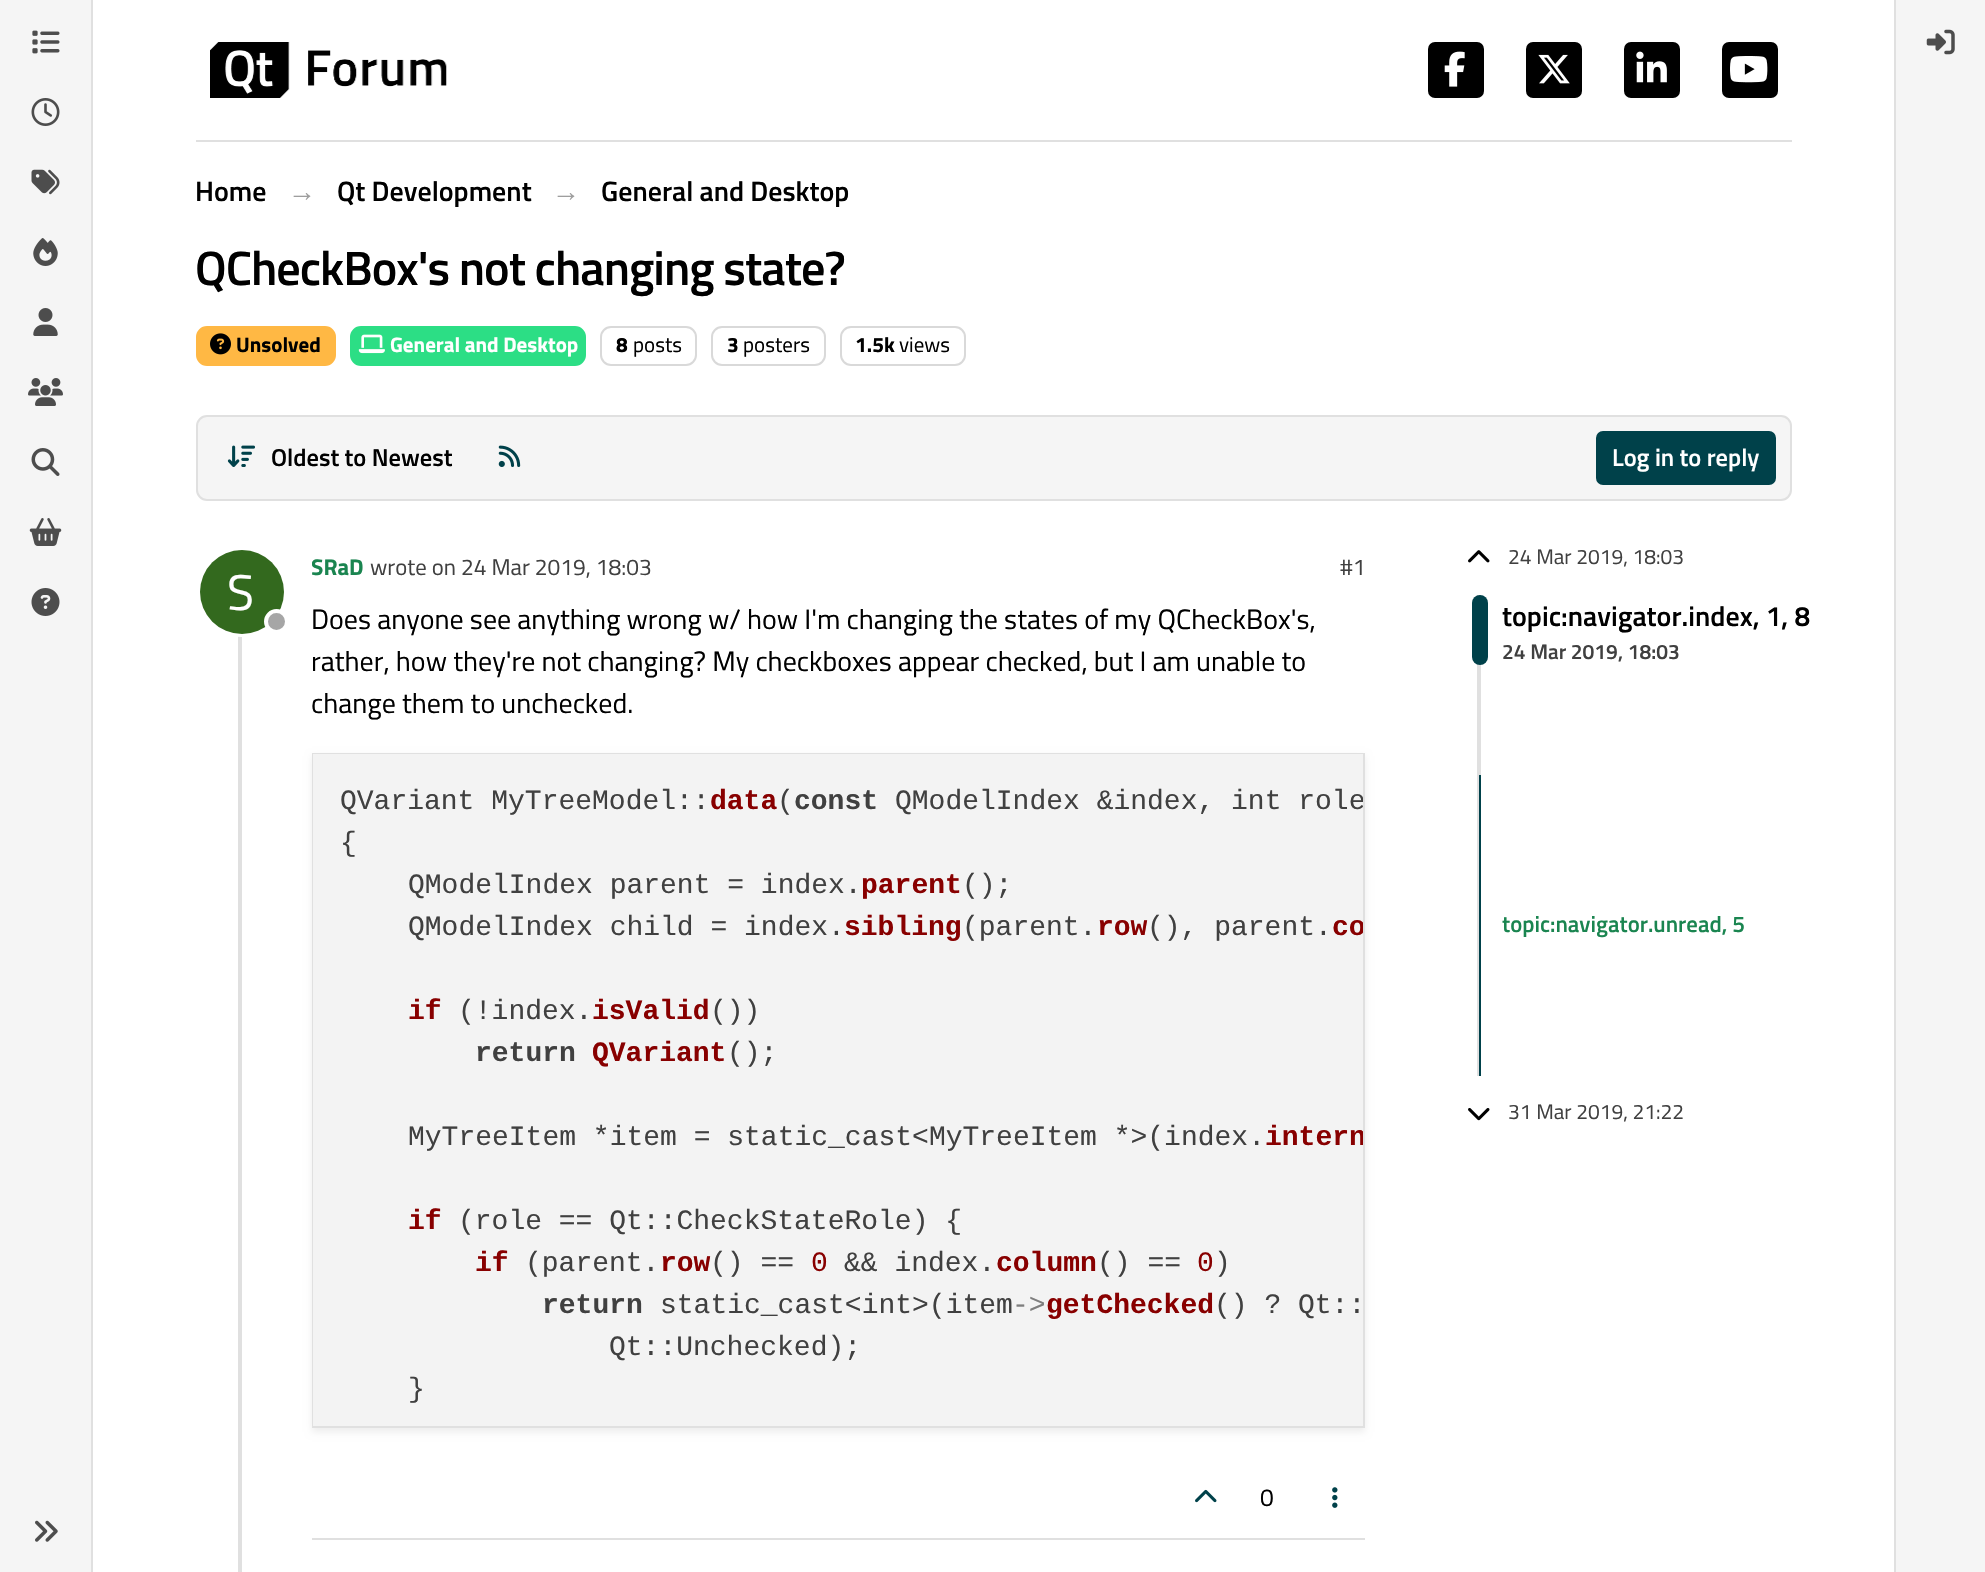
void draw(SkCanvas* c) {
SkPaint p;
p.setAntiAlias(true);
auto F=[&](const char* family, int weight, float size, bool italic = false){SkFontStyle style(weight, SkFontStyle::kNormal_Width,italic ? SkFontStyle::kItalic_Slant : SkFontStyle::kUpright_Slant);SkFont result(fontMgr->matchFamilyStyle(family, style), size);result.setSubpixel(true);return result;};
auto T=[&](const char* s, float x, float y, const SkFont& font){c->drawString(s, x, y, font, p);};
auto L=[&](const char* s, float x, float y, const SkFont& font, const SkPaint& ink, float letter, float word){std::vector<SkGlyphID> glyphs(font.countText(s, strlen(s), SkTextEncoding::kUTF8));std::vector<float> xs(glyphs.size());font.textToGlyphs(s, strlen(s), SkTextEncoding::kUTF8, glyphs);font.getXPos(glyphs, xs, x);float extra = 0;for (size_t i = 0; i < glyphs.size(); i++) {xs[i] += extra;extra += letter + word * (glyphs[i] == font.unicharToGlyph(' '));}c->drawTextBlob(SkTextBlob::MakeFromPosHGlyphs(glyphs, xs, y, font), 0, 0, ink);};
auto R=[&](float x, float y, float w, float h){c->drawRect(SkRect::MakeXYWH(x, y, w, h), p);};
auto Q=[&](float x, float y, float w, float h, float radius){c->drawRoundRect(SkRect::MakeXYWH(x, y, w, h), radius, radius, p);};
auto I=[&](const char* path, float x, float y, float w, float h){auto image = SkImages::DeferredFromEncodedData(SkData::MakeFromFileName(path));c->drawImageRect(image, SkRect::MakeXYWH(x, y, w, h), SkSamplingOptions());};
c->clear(0xffffffff);
p.setColor(0xfff5f5f5);
R(0,0,91,1572);
p.setColor(0xffe0e0e0);
R(91,0,2,1572);
I("1.png",32,30,28,24);
I("2.png",31,98,29,28);
I("3.png",31,169,29,26);
I("4.png",33,238,25,28);
I("5.png",33,308,25,28);
I("6.png",28,378,35,28);
I("7.png",31,448,29,28);
I("8.png",29,518,33,28);
I("9.png",31,588,29,28);
I("10.png",35,1520,23,22);
R(196,140,1596,2);
I("11.png",210,42,237,56);
p.setColor(0xff000000);
Q(1428,42,56,56,7);
I("12.png",1444,51,21,36);
Q(1526,42,56,56,7);
I("13.png",1538,54,32,30);
Q(1624,42,56,56,7);
I("14.png",1636,51,31,32);
Q(1722,42,56,56,7);
I("15.png",1730,56,38,27);
auto f1 = F("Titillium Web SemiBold",600,28);
T("Home",195,201,f1);
auto f2 = F("Liberation Sans",700,28);
p.setColor(0xff9e9e9e);
T("→",288,201,f2);
p.setColor(0xff000000);
T("Qt Development",337,201,f1);
p.setColor(0xff9e9e9e);
T("→",552,201,f2);
p.setColor(0xff000000);
T("General and Desktop",601,201,f1);
auto f3 = F("Titillium Web SemiBold",600,48.25);
L("QCheckBox's not changing state?",195,285,f3,p,-1,0);
p.setColor(0xffffb844);
c->drawRoundRect(SkRect::MakeXYWH(197,327,138,38),10,10,p);
p.setStroke(true);
p.setStrokeWidth(2);
c->drawRoundRect(SkRect::MakeXYWH(197,327,138,38),10,10,p);
I("16.png",210,333,21,22);
auto f4 = F("Titillium Web",700,21);
p.setStroke(false);
p.setColor(0xff000000);
T("Unsolved",236,352,f4);
p.setColor(0xff2cde85);
c->drawRoundRect(SkRect::MakeXYWH(351,327,234,38),10,10,p);
p.setStroke(true);
c->drawRoundRect(SkRect::MakeXYWH(351,327,234,38),10,10,p);
I("17.png",358,334,27,20);
p.setStroke(false);
p.setColor(0xffffffff);
T("General and Desktop",390,352,f4);
p.setStroke(true);
p.setColor(0xffd9d9d9);
c->drawRoundRect(SkRect::MakeXYWH(601,327,95,38),10,10,p);
p.setStroke(false);
p.setColor(0xff000000);
T("8",616,352,f4);
auto f5 = F("Titillium Web",400,21);
T("posts",633,352,f5);
p.setStroke(true);
p.setColor(0xffd9d9d9);
c->drawRoundRect(SkRect::MakeXYWH(712,327,113,38),10,10,p);
p.setStroke(false);
p.setColor(0xff000000);
T("3",727,352,f4);
T("posters",743,352,f5);
p.setStroke(true);
p.setColor(0xffd9d9d9);
c->drawRoundRect(SkRect::MakeXYWH(841,327,124,38),10,10,p);
p.setStroke(false);
p.setColor(0xff000000);
T("1.5k",855,352,f4);
T("views",899,352,f5);
p.setColor(0xfff5f5f5);
c->drawRoundRect(SkRect::MakeXYWH(197,416,1594,84),10,10,p);
p.setStroke(true);
p.setColor(0xffe0e0e0);
c->drawRoundRect(SkRect::MakeXYWH(197,416,1594,84),10,10,p);
I("18.png",227,445,28,22);
auto f6 = F("Titillium Web SemiBold",600,24.5);
p.setStroke(false);
p.setColor(0xff000000);
T("Oldest to Newest",271,466,f6);
I("19.png",498,445,23,22);
p.setColor(0xff00414a);
c->drawRoundRect(SkRect::MakeXYWH(1597,432,178,52),6,6,p);
p.setStroke(true);
c->drawRoundRect(SkRect::MakeXYWH(1597,432,178,52),6,6,p);
p.setStroke(false);
p.setColor(0xffffffff);
T("Log in to reply",1612,466,f6);
p.setColor(0xffe0e0e0);
R(238,550,4,1022);
p.setStroke(true);
p.setStrokeWidth(4);
p.setColor(0xffffffff);
c->drawCircle(241.5,591.5,43.5,p);
p.setStroke(false);
p.setColor(0xff33691e);
c->drawCircle(242,592,42,p);
auto f7 = F("Titillium Web",400,50);
p.setColor(0xffffffff);
T("S",227,610,f7);
p.setColor(0xffa6a6a6);
c->drawCircle(276.5,621.5,10.5,p);
p.setStroke(true);
p.setColor(0xffffffff);
c->drawCircle(276.5,621.5,10.5,p);
c->save();
c->clipRect(SkRect::MakeXYWH(312,550,52,35));
auto f8 = F("Titillium Web",700,22.75);
p.setStroke(false);
p.setColor(0xff1a8550);
T("SRaD",311,575,f8);
c->restore();
auto f9 = F("Titillium Web",400,22.75);
p.setColor(0xff404040);
T("wrote on 24 Mar 2019, 18:03",370,575,f9);
T("#1",1340,575,f9);
auto f10 = F("Titillium Web",400,28);
p.setColor(0xff000000);
T("Does anyone see anything wrong w/ how I'm changing the states of my QCheckBox's,",311,629,f10);
T("rather, how they're not changing? My checkboxes appear checked, but I am unable to",311,671,f10);
T("change them to unchecked.",311,713,f10);
p.setColor(0x12000000);
p.setMaskFilter(SkMaskFilter::MakeBlur(kNormal_SkBlurStyle, 3.5));
c->drawRect(SkRect::MakeXYWH(312,756,1053,676),p);
p.setMaskFilter(nullptr);
p.setStroke(true);
p.setStrokeWidth(2);
p.setColor(0xffe0e0e0);
c->drawRect(SkRect::MakeXYWH(313,754,1051,673),p);
p.setStroke(false);
p.setColor(0xfff3f3f3);
R(313,754,1050,672);
auto f11 = F("Liberation Mono",400,28);
p.setColor(0xff404040);
T("QVariant MyTreeModel::",340,809,f11);
auto f12 = F("Liberation Mono",700,28);
p.setColor(0xff880000);
T("data",710,809,f12);
p.setColor(0xff404040);
T("(",777,809,f11);
T("const",794,809,f12);
c->save();
c->clipRect(SkRect::MakeXYWH(313,754,1050,672));
T("QModelIndex &index, int role",895,809,f11);
c->restore();
T("{",340,851,f11);
T("QModelIndex parent = index.",408,893,f11);
p.setColor(0xff880000);
T("parent",861,893,f12);
p.setColor(0xff404040);
T("();",962,893,f11);
T("QModelIndex child = index.",408,935,f11);
p.setColor(0xff880000);
T("sibling",844,935,f12);
p.setColor(0xff404040);
T("(parent.",962,935,f11);
p.setColor(0xff880000);
T("row",1097,935,f12);
p.setColor(0xff404040);
T("(), parent.",1147,935,f11);
c->save();
c->clipRect(SkRect::MakeXYWH(313,754,1050,672));
p.setColor(0xff880000);
T("co",1332,935,f12);
c->restore();
T("if",408,1019,f12);
p.setColor(0xff404040);
T("(!index.",458,1019,f11);
p.setColor(0xff880000);
T("isValid",592,1019,f12);
p.setColor(0xff404040);
T("())",710,1019,f11);
T("return",475,1061,f12);
p.setColor(0xff880000);
T("QVariant",592,1061,f12);
p.setColor(0xff404040);
T("();",727,1061,f11);
T("MyTreeItem *item = static_cast<MyTreeItem *>(index.",408,1145,f11);
c->save();
c->clipRect(SkRect::MakeXYWH(313,754,1050,672));
p.setColor(0xff880000);
T("intern",1265,1145,f12);
c->restore();
T("if",408,1229,f12);
p.setColor(0xff404040);
T("(role == Qt::CheckStateRole) {",458,1229,f11);
p.setColor(0xff880000);
T("if",475,1271,f12);
p.setColor(0xff404040);
T("(parent.",525,1271,f11);
p.setColor(0xff880000);
T("row",660,1271,f12);
p.setColor(0xff404040);
T("() ==",710,1271,f11);
p.setColor(0xff880000);
T("0",811,1271,f11);
p.setColor(0xff404040);
T("&& index.",844,1271,f11);
p.setColor(0xff880000);
T("column",996,1271,f12);
p.setColor(0xff404040);
T("() ==",1097,1271,f11);
p.setColor(0xff880000);
T("0",1197,1271,f11);
p.setColor(0xff404040);
T(")",1214,1271,f11);
T("return",542,1313,f12);
T("static_cast<int>(item",660,1313,f11);
p.setColor(0xff7e7e7e);
T("->",1012,1313,f11);
p.setColor(0xff880000);
T("getChecked",1046,1313,f12);
p.setColor(0xff404040);
T("() ? Qt::",1214,1313,f11);
T("Qt::Unchecked);",609,1355,f11);
T("}",408,1397,f11);
p.setColor(0xffe0e0e0);
R(312,1538,1053,2);
I("20.png",1195,1489,22,14);
auto f13 = F("Titillium Web",400,24.5);
p.setColor(0xff000000);
T("0",1260,1506,f13);
I("21.png",1332,1487,6,21);
I("22.png",1468,550,22,13);
p.setColor(0xff404040);
T("24 Mar 2019, 18:03",1508,564,f5);
p.setColor(0xffe0e0e0);
R(1477,595,4,481);
p.setColor(0xff00414a);
Q(1472,595,16,70,8);
p.setColor(0xff000000);
T("topic:navigator.index, 1, 8",1502,626,f1);
auto f14 = F("Titillium Web SemiBold",600,21);
p.setColor(0xff404040);
T("24 Mar 2019, 18:03",1502,659,f14);
p.setColor(0xff00414a);
R(1479,775,2,301);
auto f15 = F("Titillium Web SemiBold",600,22.75);
p.setColor(0xff1a8550);
T("topic:navigator.unread, 5",1502,932,f15);
I("23.png",1468,1108,22,13);
p.setColor(0xff404040);
T("31 Mar 2019, 21:22",1508,1119,f5);
p.setColor(0xfff5f5f5);
R(1896,0,89,1572);
p.setColor(0xffe0e0e0);
R(1894,0,2,1572);
I("24.png",1926,29,29,26);
}
